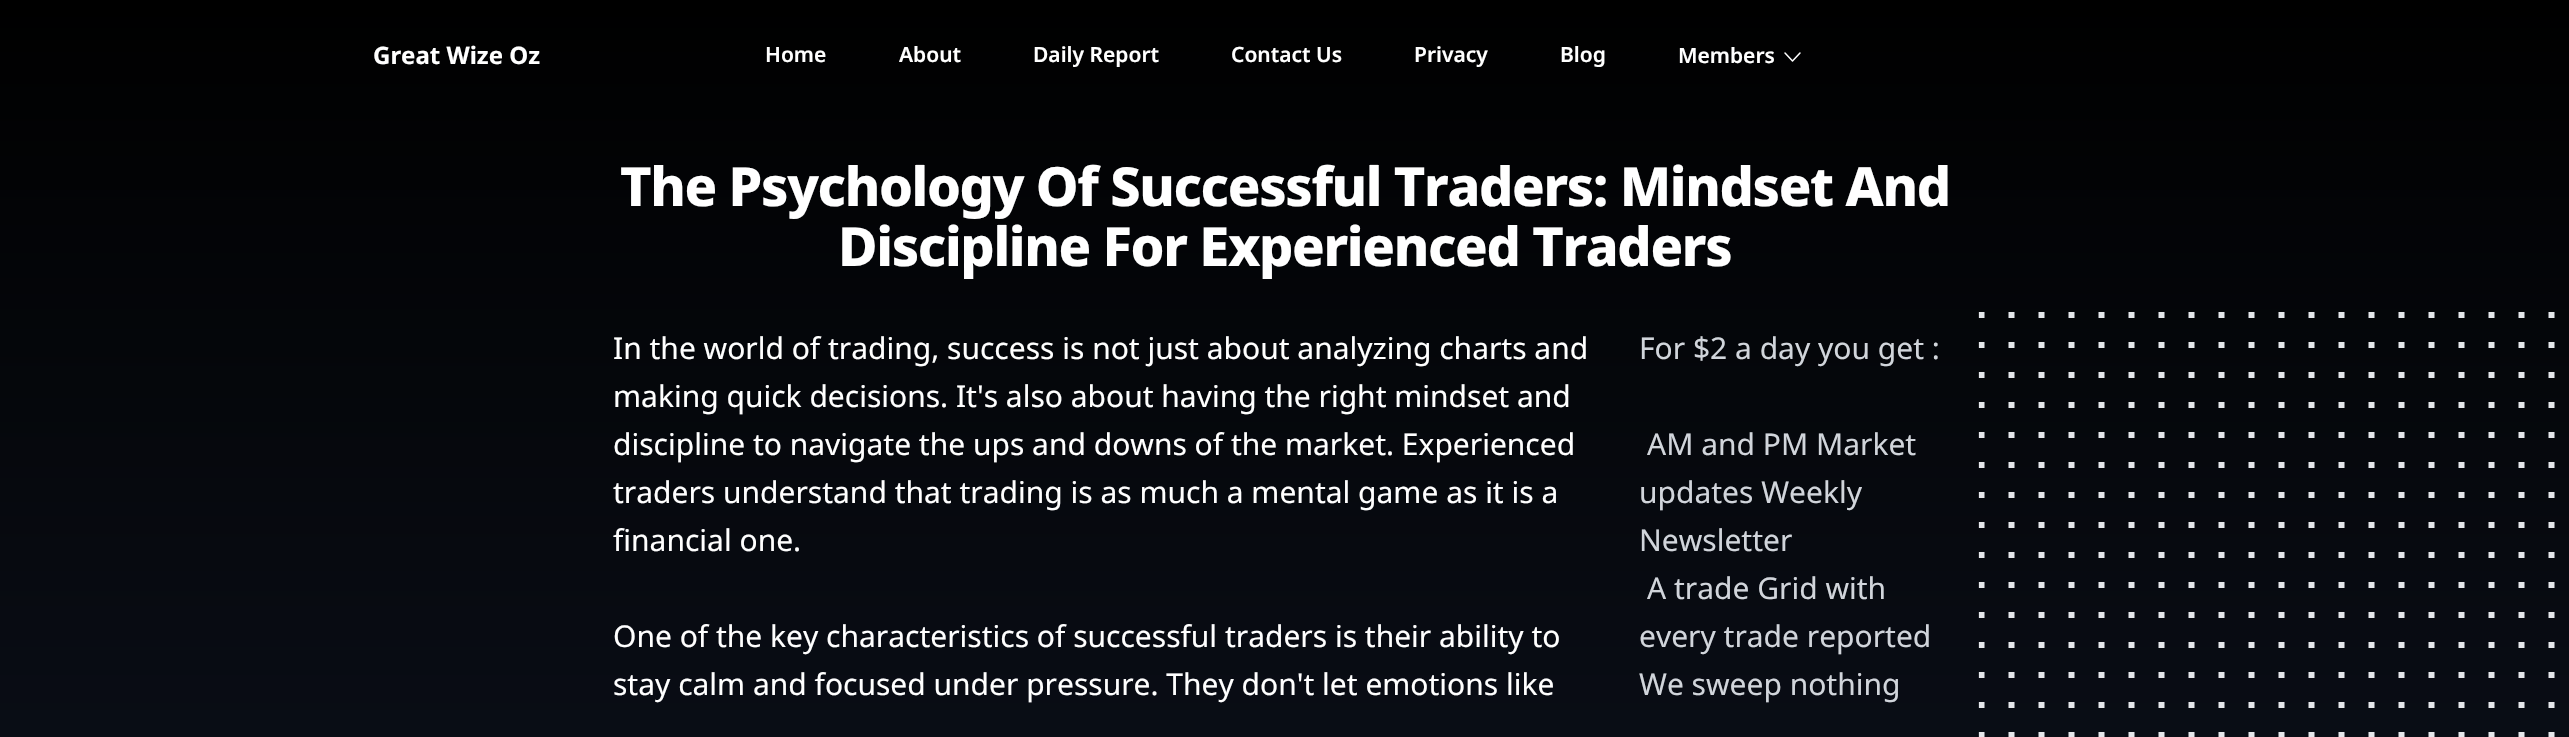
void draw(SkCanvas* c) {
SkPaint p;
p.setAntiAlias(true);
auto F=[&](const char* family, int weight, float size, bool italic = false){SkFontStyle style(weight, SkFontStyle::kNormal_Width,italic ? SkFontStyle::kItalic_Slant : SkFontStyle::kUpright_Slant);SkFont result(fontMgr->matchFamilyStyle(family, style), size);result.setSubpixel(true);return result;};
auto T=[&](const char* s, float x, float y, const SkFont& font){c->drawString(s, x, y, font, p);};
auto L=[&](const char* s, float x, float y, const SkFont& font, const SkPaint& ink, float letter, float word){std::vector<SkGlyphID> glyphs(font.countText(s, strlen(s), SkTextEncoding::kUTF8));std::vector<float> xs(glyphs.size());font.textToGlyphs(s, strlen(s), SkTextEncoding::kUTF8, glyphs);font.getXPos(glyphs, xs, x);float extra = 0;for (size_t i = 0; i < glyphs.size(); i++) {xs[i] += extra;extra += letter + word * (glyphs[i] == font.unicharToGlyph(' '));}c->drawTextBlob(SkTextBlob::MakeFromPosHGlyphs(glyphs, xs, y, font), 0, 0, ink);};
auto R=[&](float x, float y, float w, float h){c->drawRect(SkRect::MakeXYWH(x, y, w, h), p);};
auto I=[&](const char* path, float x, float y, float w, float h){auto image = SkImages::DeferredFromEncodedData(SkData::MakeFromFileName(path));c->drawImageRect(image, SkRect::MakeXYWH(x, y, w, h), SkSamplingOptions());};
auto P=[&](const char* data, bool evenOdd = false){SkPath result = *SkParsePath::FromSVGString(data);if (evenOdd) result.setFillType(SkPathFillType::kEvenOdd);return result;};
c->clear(0xffffffff);
{
const SkColor colors[] = {0xff374151,0xff111827,0xff000000};
const float stops[] = {0,.5,1};
const SkPoint ends[] = {{1285,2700}, {1285,0}};
p.setShader(SkGradientShader::MakeLinear(ends, colors, stops, 3, SkTileMode::kClamp));
p.setAlpha(255);
}
R(0,0,2569,737);
auto f1 = F("Noto Sans",700,24);
p.setShader(nullptr);
p.setColor(0xffffffff);
T("Great Wize Oz",373,64,f1);
auto f2 = F("Noto Sans",600,21);
T("Home",765,62,f2);
T("About",899,62,f2);
T("Daily Report",1033,62,f2);
T("Contact Us",1231,62,f2);
T("Privacy",1414,62,f2);
T("Blog",1560,62,f2);
T("Members",1678,63,f2);
p.setStroke(true);
p.setStrokeWidth(1.5);
p.setStrokeCap(SkPaint::kRound_Cap);
p.setStrokeJoin(SkPaint::kRound_Join);
c->drawPath(P("M1800 53l-7.5 8l-7.5-8"),p);
auto f3 = F("Noto Sans",800,54);
p.setStroke(false);
L("The Psychology Of Successful Traders: Mindset And",620,206,f3,p,-1.35,0);
L("Discipline For Experienced Traders",838,266,f3,p,-1.35,0);
auto f4 = F("Noto Sans",400,30);
T("In the world of trading, success is not just about analyzing charts and",613,359,f4);
T("making quick decisions. It's also about having the right mindset and",613,407,f4);
T("discipline to navigate the ups and downs of the market. Experienced",613,455,f4);
T("traders understand that trading is as much a mental game as it is a",613,503,f4);
T("financial one.",613,551,f4);
T("One of the key characteristics of successful traders is their ability to",613,647,f4);
T("stay calm and focused under pressure. They don't let emotions like",613,695,f4);
p.setColor(0xffd1d5db);
T("For $2 a day you get :",1639,359,f4);
T("AM and PM Market",1647,455,f4);
T("updates Weekly",1639,503,f4);
T("Newsletter",1639,551,f4);
T("A trade Grid with",1647,599,f4);
T("every trade reported",1639,647,f4);
T("We sweep nothing",1639,695,f4);
I("1.png",1978,312,577,425);
}
